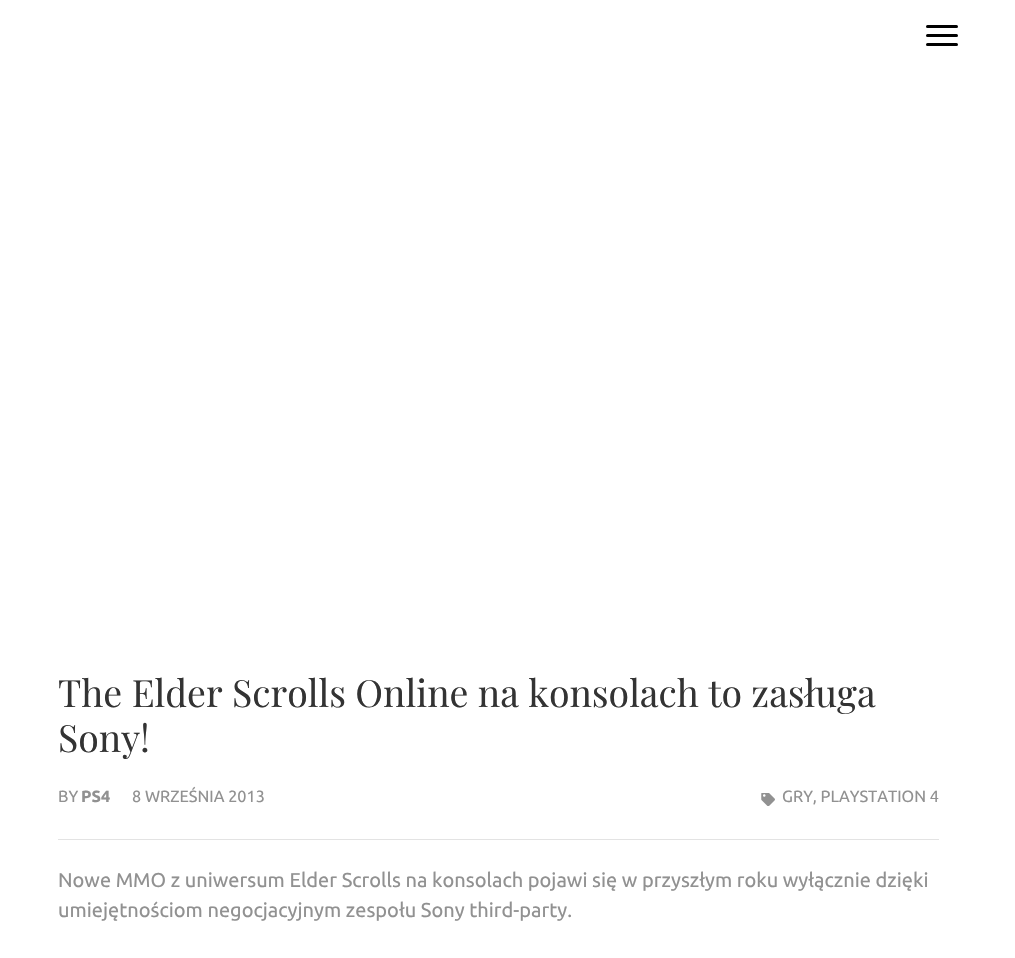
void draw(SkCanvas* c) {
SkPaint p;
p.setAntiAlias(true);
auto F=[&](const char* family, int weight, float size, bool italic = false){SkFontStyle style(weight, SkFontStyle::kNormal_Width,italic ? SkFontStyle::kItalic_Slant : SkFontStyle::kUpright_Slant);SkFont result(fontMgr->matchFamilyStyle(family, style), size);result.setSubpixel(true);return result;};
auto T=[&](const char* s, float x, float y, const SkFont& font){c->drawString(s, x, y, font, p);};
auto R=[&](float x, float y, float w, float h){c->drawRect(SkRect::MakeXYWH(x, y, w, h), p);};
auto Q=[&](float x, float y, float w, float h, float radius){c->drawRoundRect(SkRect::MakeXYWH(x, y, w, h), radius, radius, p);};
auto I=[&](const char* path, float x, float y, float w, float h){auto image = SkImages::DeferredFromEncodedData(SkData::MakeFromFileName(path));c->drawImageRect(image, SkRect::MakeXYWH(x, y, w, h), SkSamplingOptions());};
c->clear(0xffffffff);
p.setColor(0xff000000);
Q(926,25,32,3,1.5);
Q(926,34,32,3,1.5);
Q(926,43,32,3,1.5);
p.setColor(0xffe3e3e3);
R(58,839,881,1);
auto f1 = F("Playfair Display",400,37.5);
p.setColor(0xff333333);
T("The Elder Scrolls Online na konsolach to zasługa",58,707,f1);
T("Sony!",58,752,f1);
auto f2 = F("Ubuntu",400,16.25);
p.setColor(0xff919191);
T("BY",58,802,f2);
auto f3 = F("Ubuntu",700,16.25);
T("PS4",81,802,f3);
T("8 WRZEŚNIA 2013",132,802,f2);
I("1.png",761,793,14,13);
T("GRY, PLAYSTATION 4",782,802,f2);
auto f4 = F("Ubuntu",400,20);
T("Nowe MMO z uniwersum Elder Scrolls na konsolach pojawi się w przyszłym roku wyłącznie dzięki",58,887,f4);
T("umiejętnościom negocjacyjnym zespołu Sony third-party.",58,917,f4);
}
